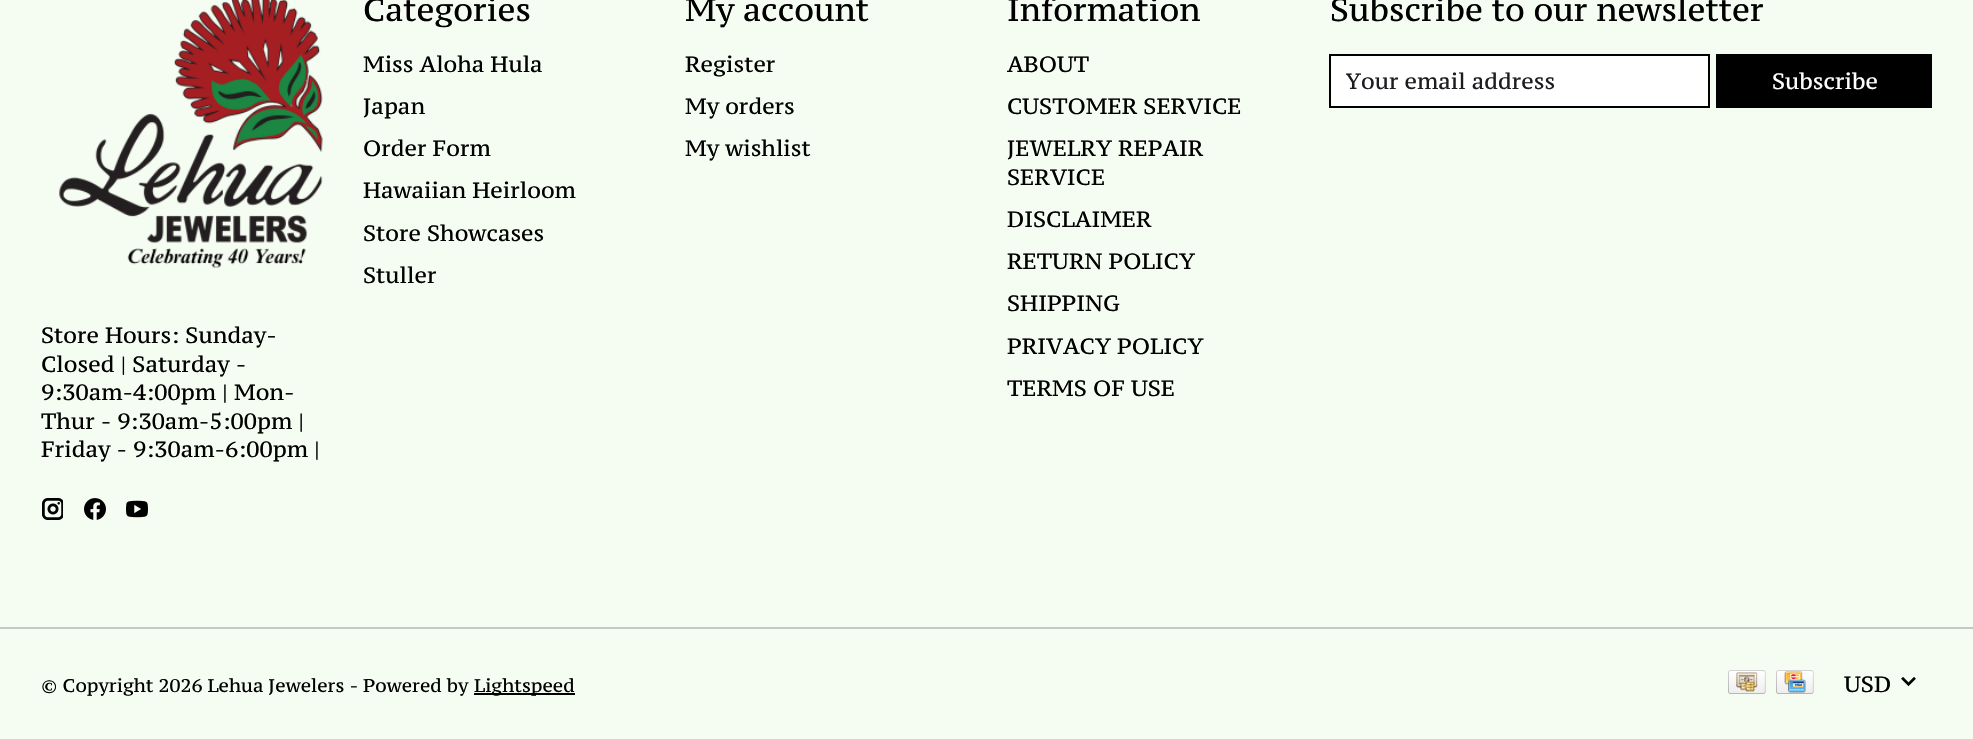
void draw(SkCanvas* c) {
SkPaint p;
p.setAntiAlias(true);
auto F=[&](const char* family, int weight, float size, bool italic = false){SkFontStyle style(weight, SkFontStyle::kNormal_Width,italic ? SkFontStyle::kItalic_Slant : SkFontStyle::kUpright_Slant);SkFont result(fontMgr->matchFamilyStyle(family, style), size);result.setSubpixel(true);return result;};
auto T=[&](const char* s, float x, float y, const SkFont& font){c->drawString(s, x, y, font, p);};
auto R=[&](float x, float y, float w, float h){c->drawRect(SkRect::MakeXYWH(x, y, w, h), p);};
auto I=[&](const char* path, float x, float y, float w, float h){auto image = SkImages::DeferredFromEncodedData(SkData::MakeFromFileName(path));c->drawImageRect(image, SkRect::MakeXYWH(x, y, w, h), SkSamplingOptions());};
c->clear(0xfff5fcf1);
I("1.png",59,0,264,268);
auto f1 = F("PT Serif Caption",400,22);
p.setColor(0xff000000);
T("Store Hours: Sunday-",41,343,f1);
T("Closed | Saturday -",41,372,f1);
T("9:30am-4:00pm | Mon-",41,400,f1);
T("Thur - 9:30am-5:00pm |",41,429,f1);
T("Friday - 9:30am-6:00pm |",41,457,f1);
I("2.png",42,498,21,22);
I("3.png",84,498,22,22);
I("4.png",126,500,22,18);
auto f2 = F("PT Serif Caption",400,31.75);
T("Categories",363,21,f2);
T("Miss Aloha Hula",363,72,f1);
T("Japan",363,114,f1);
T("Order Form",363,156,f1);
T("Hawaiian Heirloom",363,198,f1);
T("Store Showcases",363,241,f1);
T("Stuller",363,283,f1);
T("My account",685,21,f2);
T("Register",685,72,f1);
T("My orders",685,114,f1);
T("My wishlist",685,156,f1);
T("Information",1007,21,f2);
T("ABOUT",1007,72,f1);
T("CUSTOMER SERVICE",1007,114,f1);
T("JEWELRY REPAIR",1007,156,f1);
T("SERVICE",1007,185,f1);
T("DISCLAIMER",1007,227,f1);
T("RETURN POLICY",1007,269,f1);
T("SHIPPING",1007,311,f1);
T("PRIVACY POLICY",1007,354,f1);
T("TERMS OF USE",1007,396,f1);
T("Subscribe to our newsletter",1330,21,f2);
p.setColor(0xffffffff);
c->drawRect(SkRect::MakeXYWH(1330,55,379,52),p);
p.setStroke(true);
p.setStrokeWidth(2);
p.setColor(0xff000000);
c->drawRect(SkRect::MakeXYWH(1330,55,379,52),p);
c->save();
c->clipRect(SkRect::MakeXYWH(1346,66,349,29));
p.setStroke(false);
p.setColor(0xff1c1c21);
T("Your email address",1345,89,f1);
c->restore();
p.setColor(0xff000000);
R(1716,54,216,54);
p.setColor(0xffffffff);
T("Subscribe",1772,89,f1);
p.setColor(0xffc4cac1);
R(0,627,1973,2);
auto f3 = F("PT Serif Caption",400,18.3);
p.setColor(0xff000000);
T("© Copyright 2026 Lehua Jewelers - Powered by",41,692,f3);
R(474,693,101,2);
T("Lightspeed",474,692,f3);
I("5.png",1728,670,38,24);
I("6.png",1776,670,38,24);
T("USD",1844,692,f1);
I("7.png",1901,677,15,10);
}
